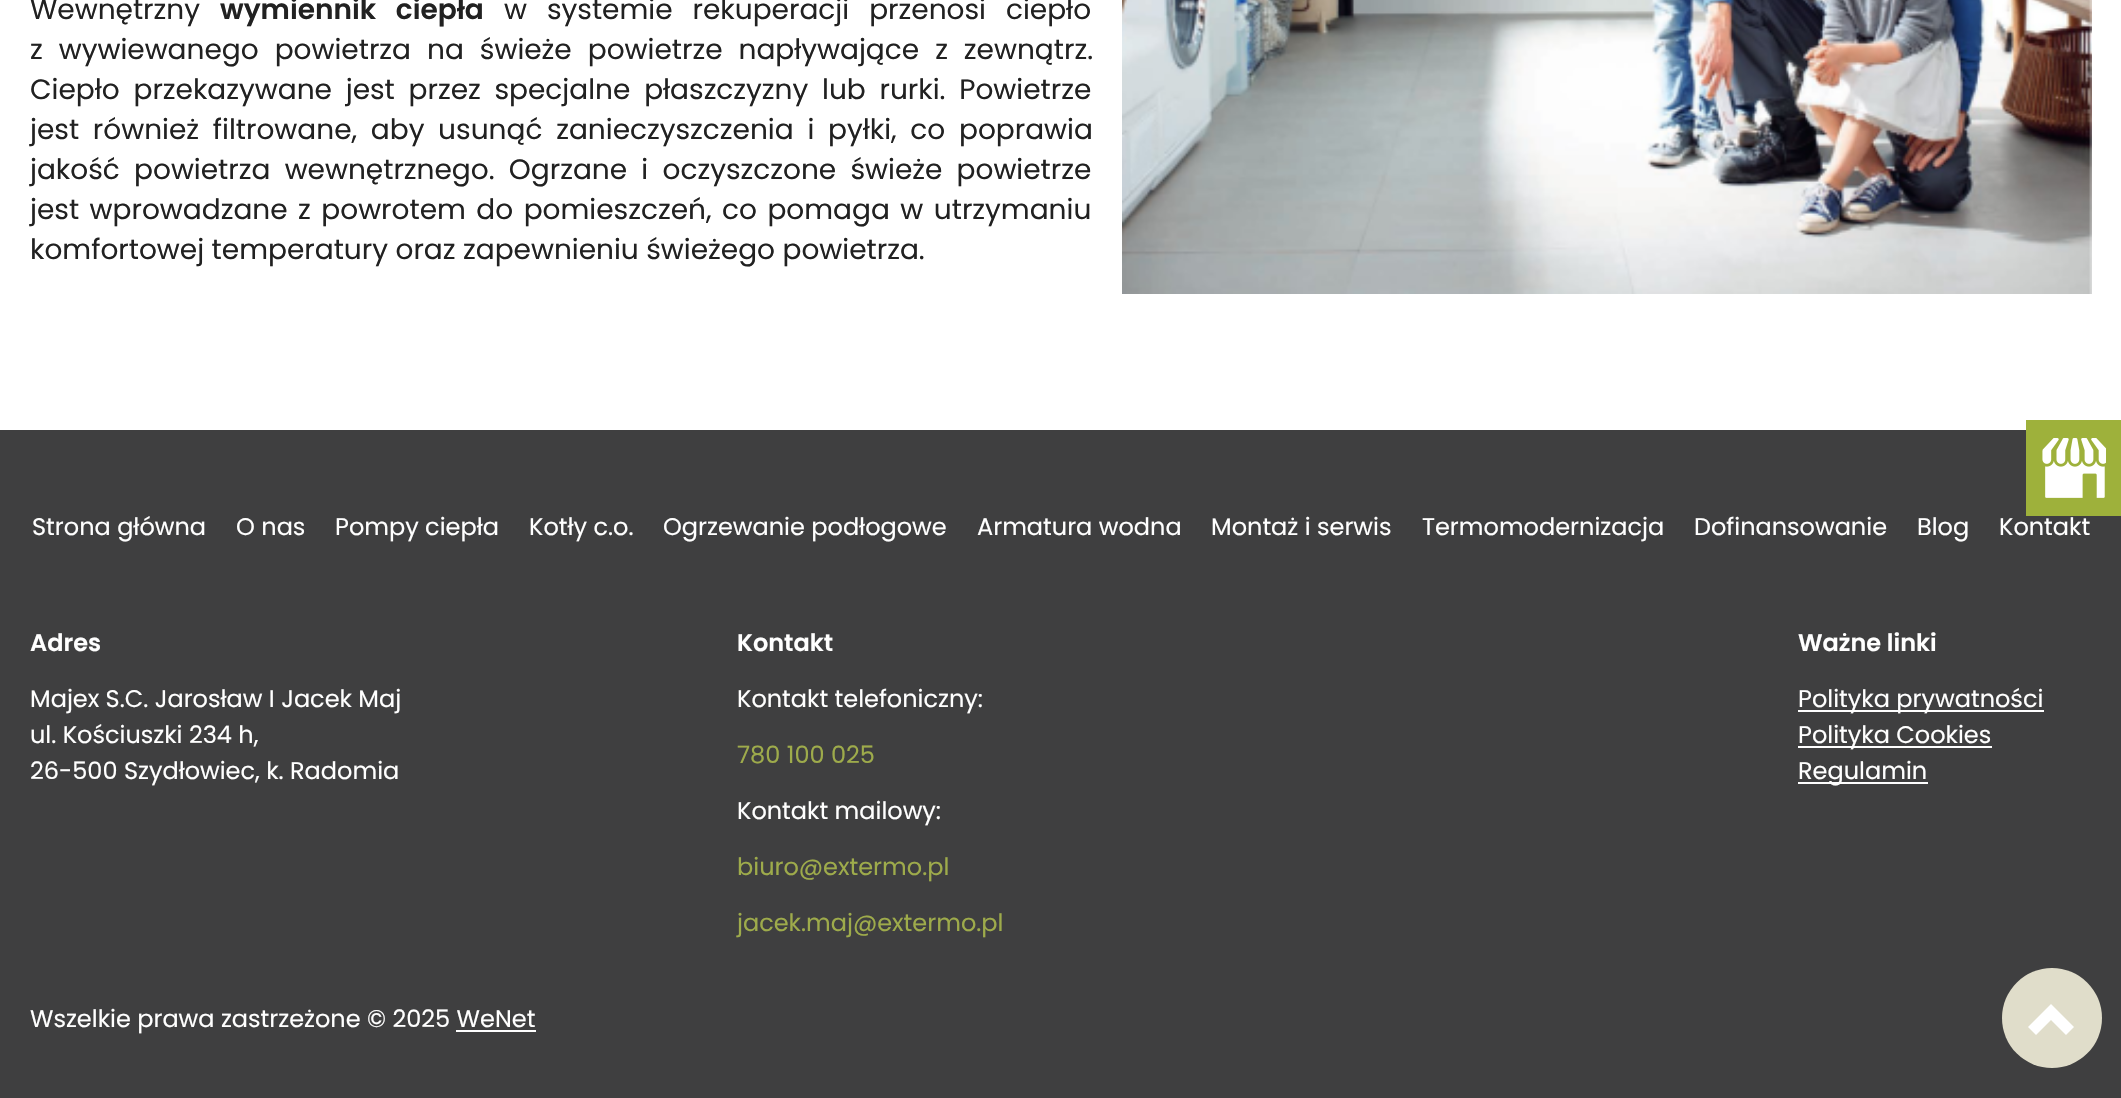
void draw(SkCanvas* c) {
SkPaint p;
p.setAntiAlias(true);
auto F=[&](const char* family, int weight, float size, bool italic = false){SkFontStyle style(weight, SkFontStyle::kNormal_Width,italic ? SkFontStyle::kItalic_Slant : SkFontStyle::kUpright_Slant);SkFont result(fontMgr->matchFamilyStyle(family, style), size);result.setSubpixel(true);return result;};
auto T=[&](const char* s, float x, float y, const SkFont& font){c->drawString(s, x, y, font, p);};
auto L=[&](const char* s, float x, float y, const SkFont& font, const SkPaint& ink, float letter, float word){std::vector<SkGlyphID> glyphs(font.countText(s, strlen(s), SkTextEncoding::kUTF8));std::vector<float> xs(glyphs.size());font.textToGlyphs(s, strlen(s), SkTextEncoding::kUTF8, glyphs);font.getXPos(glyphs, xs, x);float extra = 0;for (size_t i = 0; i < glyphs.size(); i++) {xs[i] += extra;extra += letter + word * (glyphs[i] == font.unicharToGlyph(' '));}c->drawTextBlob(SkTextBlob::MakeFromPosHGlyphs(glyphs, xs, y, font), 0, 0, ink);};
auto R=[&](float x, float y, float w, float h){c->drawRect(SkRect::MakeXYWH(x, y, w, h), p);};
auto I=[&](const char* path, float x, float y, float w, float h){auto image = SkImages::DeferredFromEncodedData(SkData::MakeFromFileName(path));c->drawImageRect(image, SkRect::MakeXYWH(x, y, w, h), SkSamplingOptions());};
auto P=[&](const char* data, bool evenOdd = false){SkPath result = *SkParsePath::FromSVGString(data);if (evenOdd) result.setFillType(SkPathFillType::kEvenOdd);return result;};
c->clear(0xffffffff);
auto f1 = F("Poppins",400,28);
p.setColor(0xff212121);
T("Wewnętrzny",30,19,f1);
auto f2 = F("Poppins",600,28);
L("wymiennik ciepła",220,19,f2,p,0,13);
L("w systemie rekuperacji przenosi ciepło",504,19,f1,p,0,12.5);
L("z wywiewanego powietrza na świeże powietrze napływające z zewnątrz.",30,59,f1,p,0,8.5);
L("Ciepło przekazywane jest przez specjalne płaszczyzny lub rurki. Powietrze",30,99,f1,p,0,6.25);
L("jest również filtrowane, aby usunąć zanieczyszczenia i pyłki, co poprawia",30,139,f1,p,0,6.25);
L("jakość powietrza wewnętrznego. Ogrzane i oczyszczone świeże powietrze",30,179,f1,p,0,6.75);
L("jest wprowadzane z powrotem do pomieszczeń, co pomaga w utrzymaniu",30,219,f1,p,0,3);
T("komfortowej temperatury oraz zapewnieniu świeżego powietrza.",30,259,f1);
I("1.png",1122,0,970,294);
p.setColor(0xff3f3f40);
R(0,430,2121,668);
p.setColor(0xff9eb13b);
R(2026,420,95,96);
I("2.png",2042,438,64,60);
auto f3 = F("Poppins",400,24);
p.setColor(0xffffffff);
T("Strona główna",32,535,f3);
T("O nas",236,535,f3);
T("Pompy ciepła",335,535,f3);
T("Kotły c.o.",529,535,f3);
T("Ogrzewanie podłogowe",663,535,f3);
T("Armatura wodna",977,535,f3);
T("Montaż i serwis",1211,535,f3);
T("Termomodernizacja",1422,535,f3);
T("Dofinansowanie",1694,535,f3);
T("Blog",1917,535,f3);
T("Kontakt",1999,535,f3);
auto f4 = F("Poppins",600,24);
T("Adres",30,651,f4);
T("Majex S.C. Jarosław I Jacek Maj",30,707,f3);
T("ul. Kościuszki 234 h,",30,743,f3);
T("26-500 Szydłowiec, k. Radomia",30,779,f3);
T("Kontakt",737,651,f4);
T("Kontakt telefoniczny:",737,707,f3);
p.setColor(0xff9eab4b);
T("780 100 025",737,763,f3);
p.setColor(0xffffffff);
T("Kontakt mailowy:",737,819,f3);
p.setColor(0xff9eab4b);
T("biuro@extermo.pl",737,875,f3);
T("jacek.maj@extermo.pl",737,931,f3);
p.setColor(0xffffffff);
T("Ważne linki",1798,651,f4);
R(1798,710,246,2);
T("Polityka prywatności",1798,707,f3);
R(1798,746,194,2);
T("Polityka Cookies",1798,743,f3);
R(1798,782,130,2);
T("Regulamin",1798,779,f3);
T("Wszelkie prawa zastrzeżone © 2025 WeNet",30,1027,f3);
R(456,1030,80,2);
p.setColor(0xffe0ddca);
c->drawCircle(2052,1018,50,p);
p.setColor(0xffffffff);
c->drawPath(P("M2074 1027l-8 8l-15-15l-15 15l-8-8l23-23z"),p);
}
